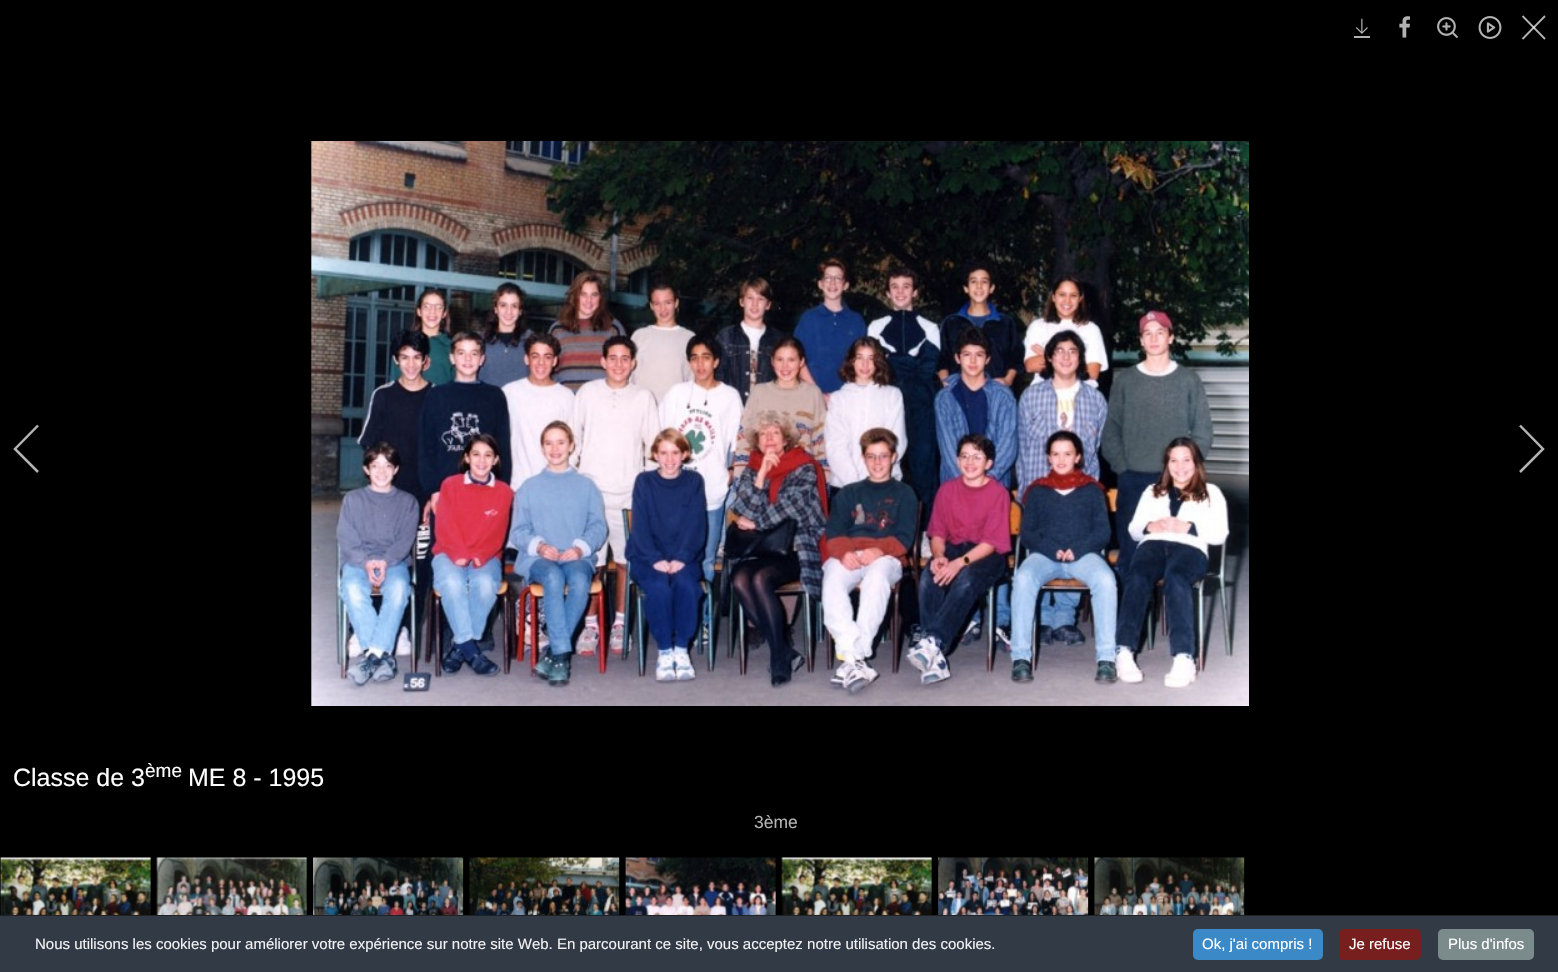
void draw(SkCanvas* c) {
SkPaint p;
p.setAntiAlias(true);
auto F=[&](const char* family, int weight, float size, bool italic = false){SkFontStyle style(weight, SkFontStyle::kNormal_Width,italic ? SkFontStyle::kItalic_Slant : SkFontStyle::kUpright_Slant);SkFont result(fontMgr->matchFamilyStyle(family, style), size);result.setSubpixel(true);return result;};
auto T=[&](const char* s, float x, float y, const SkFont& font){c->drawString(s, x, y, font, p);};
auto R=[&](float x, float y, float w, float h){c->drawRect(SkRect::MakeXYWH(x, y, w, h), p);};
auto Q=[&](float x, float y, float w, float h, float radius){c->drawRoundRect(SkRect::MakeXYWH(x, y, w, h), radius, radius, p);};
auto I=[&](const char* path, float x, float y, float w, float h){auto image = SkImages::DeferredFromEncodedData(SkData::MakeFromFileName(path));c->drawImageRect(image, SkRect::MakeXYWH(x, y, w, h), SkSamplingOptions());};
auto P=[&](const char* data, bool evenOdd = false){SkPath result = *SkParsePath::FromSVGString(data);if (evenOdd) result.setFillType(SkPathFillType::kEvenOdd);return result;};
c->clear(0xff000000);
I("1.png",1354,18,16,20);
I("2.png",1399,16,11,22);
I("3.png",1437,17,21,21);
I("4.png",1478,16,24,23);
p.setStroke(true);
p.setStrokeWidth(1.8);
p.setColor(0xffb3b3b3);
c->drawPath(P("M1522.5 16l22.5 23"),p);
p.setColor(0xb3ffffff);
c->drawPath(P("M1545 16l-22.5 23"),p);
p.setStrokeWidth(2.5);
p.setColor(0xffb3b3b3);
c->drawPath(P("M38 425.5l-23 23.5l23 23"),p);
I("5.png",311,141,938,565);
c->drawPath(P("M1520 472l23-23l-23-23.5"),p);
auto f1 = F("Liberation Sans",400,25);
p.setStroke(false);
p.setColor(0xffffffff);
T("Classe de 3",13,786,f1);
auto f2 = F("Liberation Sans",400,19);
T("ème",145,777,f2);
T("ME 8 - 1995",188,786,f1);
auto f3 = F("Liberation Sans",400,17.5);
p.setColor(0xffb3b3b3);
T("3ème",754,828,f3);
I("6.png",0,857,151,58);
I("7.png",156,857,152,58);
I("8.png",313,857,151,58);
I("9.png",469,857,151,58);
I("10.png",625,857,151,58);
I("11.png",781,857,151,58);
I("12.png",938,857,151,58);
I("13.png",1094,857,151,58);
p.setColor(0xff323a45);
R(0,916,1558,56);
p.setColor(0xff202226);
R(0,915,1558,1);
auto f4 = F("Liberation Sans",400,15);
p.setColor(0xfff1f1f3);
T("Nous utilisons les cookies pour améliorer votre expérience sur notre site Web. En parcourant ce site, vous acceptez notre utilisation des cookies.",35,949,f4);
p.setColor(0xff3b89c7);
Q(1193,929,130,31,5);
p.setColor(0xffffffff);
T("Ok, j'ai compris !",1202,949,f4);
p.setColor(0xff771f1f);
Q(1339,929,82,31,5);
p.setColor(0xffffffff);
T("Je refuse",1349,949,f4);
p.setColor(0xff7b8a8b);
Q(1438,929,96,31,5);
p.setColor(0xffffffff);
T("Plus d'infos",1448,949,f4);
}
